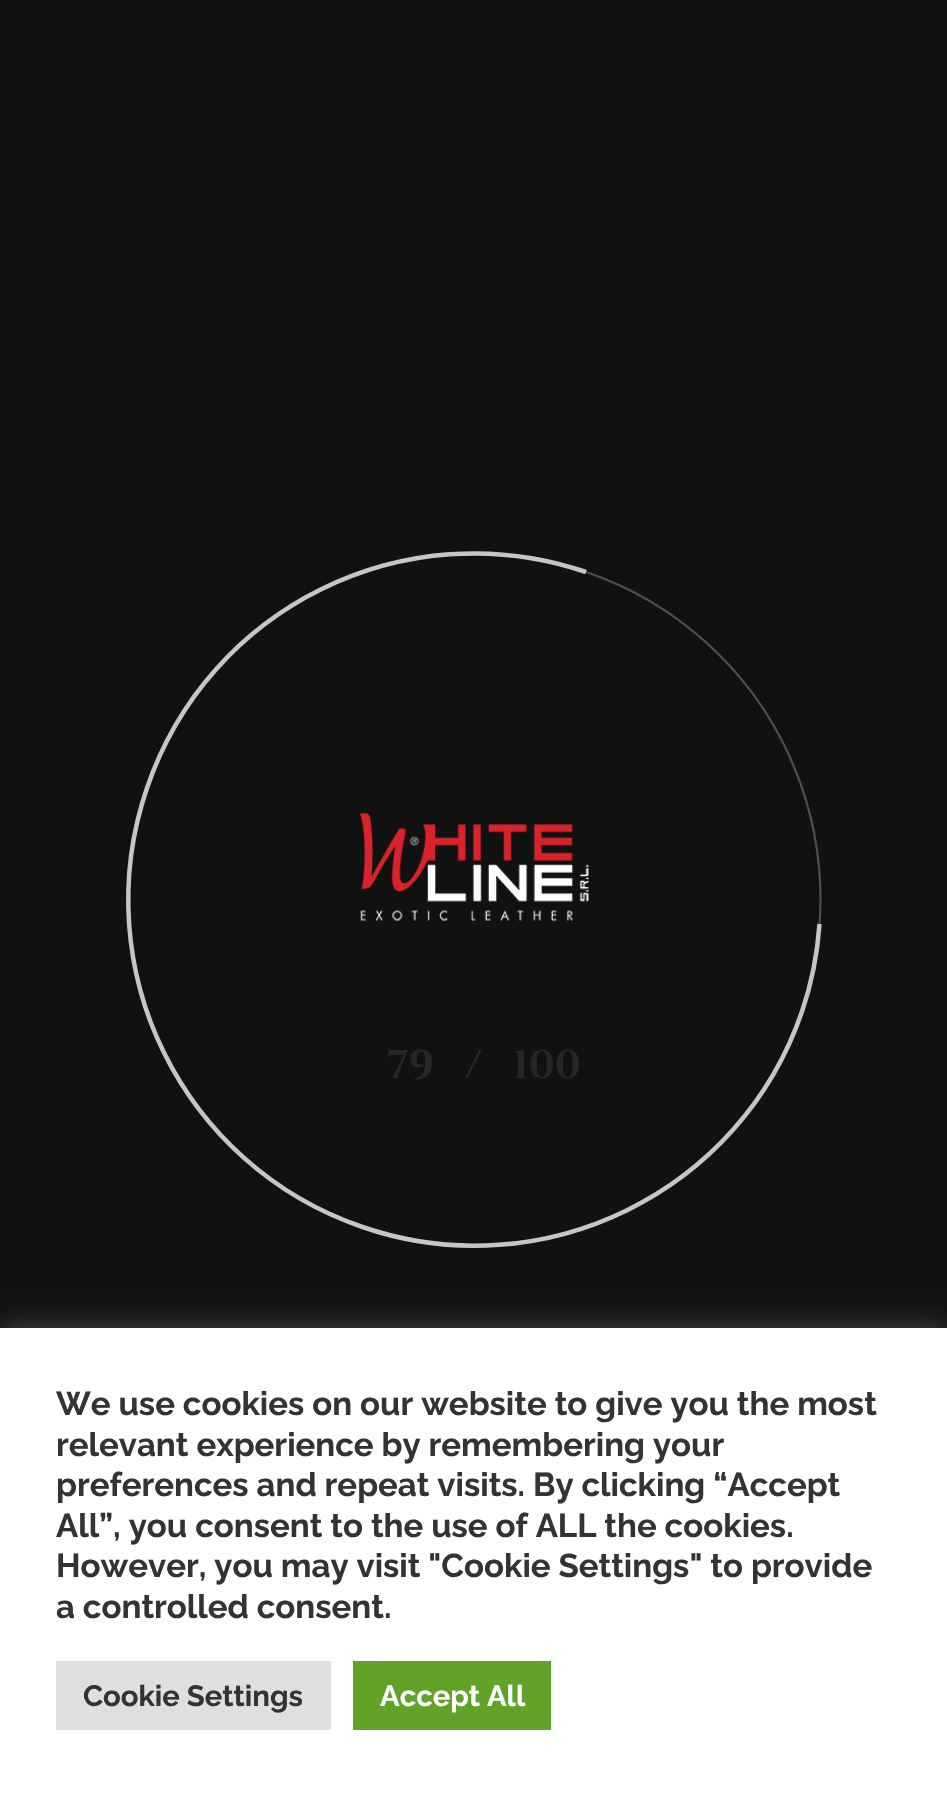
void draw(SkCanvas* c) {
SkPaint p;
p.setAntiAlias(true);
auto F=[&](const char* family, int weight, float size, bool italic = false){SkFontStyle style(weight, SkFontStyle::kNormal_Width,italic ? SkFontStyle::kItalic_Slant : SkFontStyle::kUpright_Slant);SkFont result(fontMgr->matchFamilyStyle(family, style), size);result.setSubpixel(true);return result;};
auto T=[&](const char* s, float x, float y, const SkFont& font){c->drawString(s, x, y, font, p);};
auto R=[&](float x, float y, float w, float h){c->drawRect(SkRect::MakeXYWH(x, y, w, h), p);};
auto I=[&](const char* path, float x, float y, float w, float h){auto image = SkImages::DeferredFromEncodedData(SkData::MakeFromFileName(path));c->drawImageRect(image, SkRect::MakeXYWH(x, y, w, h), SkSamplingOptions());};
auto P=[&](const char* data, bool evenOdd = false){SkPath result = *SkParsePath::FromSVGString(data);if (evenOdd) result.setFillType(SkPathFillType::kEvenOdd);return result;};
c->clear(0xff111111);
I("1.png",359,812,230,109);
auto f1 = F("Cinzel",700,40);
p.setColor(0xff262626);
T("79",387,1078,f1);
T("/",465,1078,f1);
T("100",513,1078,f1);
p.setStroke(true);
p.setStrokeWidth(2.2);
p.setColor(0xff4e4e4e);
c->drawCircle(474.5,899.5,346,p);
p.setStrokeWidth(4.5);
p.setColor(0xffc5c6c9);
c->drawPath(P("M819.5 924c-2 29-7.5 58.5-17.5 87.5c-61.5 180.5-258.5 277.5-439.5 215.5c-180.5-61.5-277.5-258-215.5-439c61.5-181 258-277.5 439-216"),p);
p.setStroke(false);
p.setColor(0x4dacabab);
p.setMaskFilter(SkMaskFilter::MakeBlur(kNormal_SkBlurStyle, 11));
c->drawRect(SkRect::MakeXYWH(0,1325,947,471),p);
p.setMaskFilter(nullptr);
p.setColor(0xffffffff);
R(0,1328,947,469);
auto f2 = F("Raleway",700,33);
p.setColor(0xff333333);
T("We use cookies on our website to give you the most",56,1415,f2);
T("relevant experience by remembering your",56,1456,f2);
T("preferences and repeat visits. By clicking “Accept",56,1496,f2);
T("All”, you consent to the use of ALL the cookies.",56,1537,f2);
T("However, you may visit \"Cookie Settings\" to provide",56,1577,f2);
T("a controlled consent.",56,1618,f2);
p.setColor(0xffdedfe0);
R(56,1661,275,69);
auto f3 = F("Raleway",700,29.25);
p.setColor(0xff333333);
T("Cookie Settings",83,1706,f3);
p.setColor(0xff61a229);
R(353,1661,198,69);
p.setColor(0xffffffff);
T("Accept All",380,1706,f3);
}
